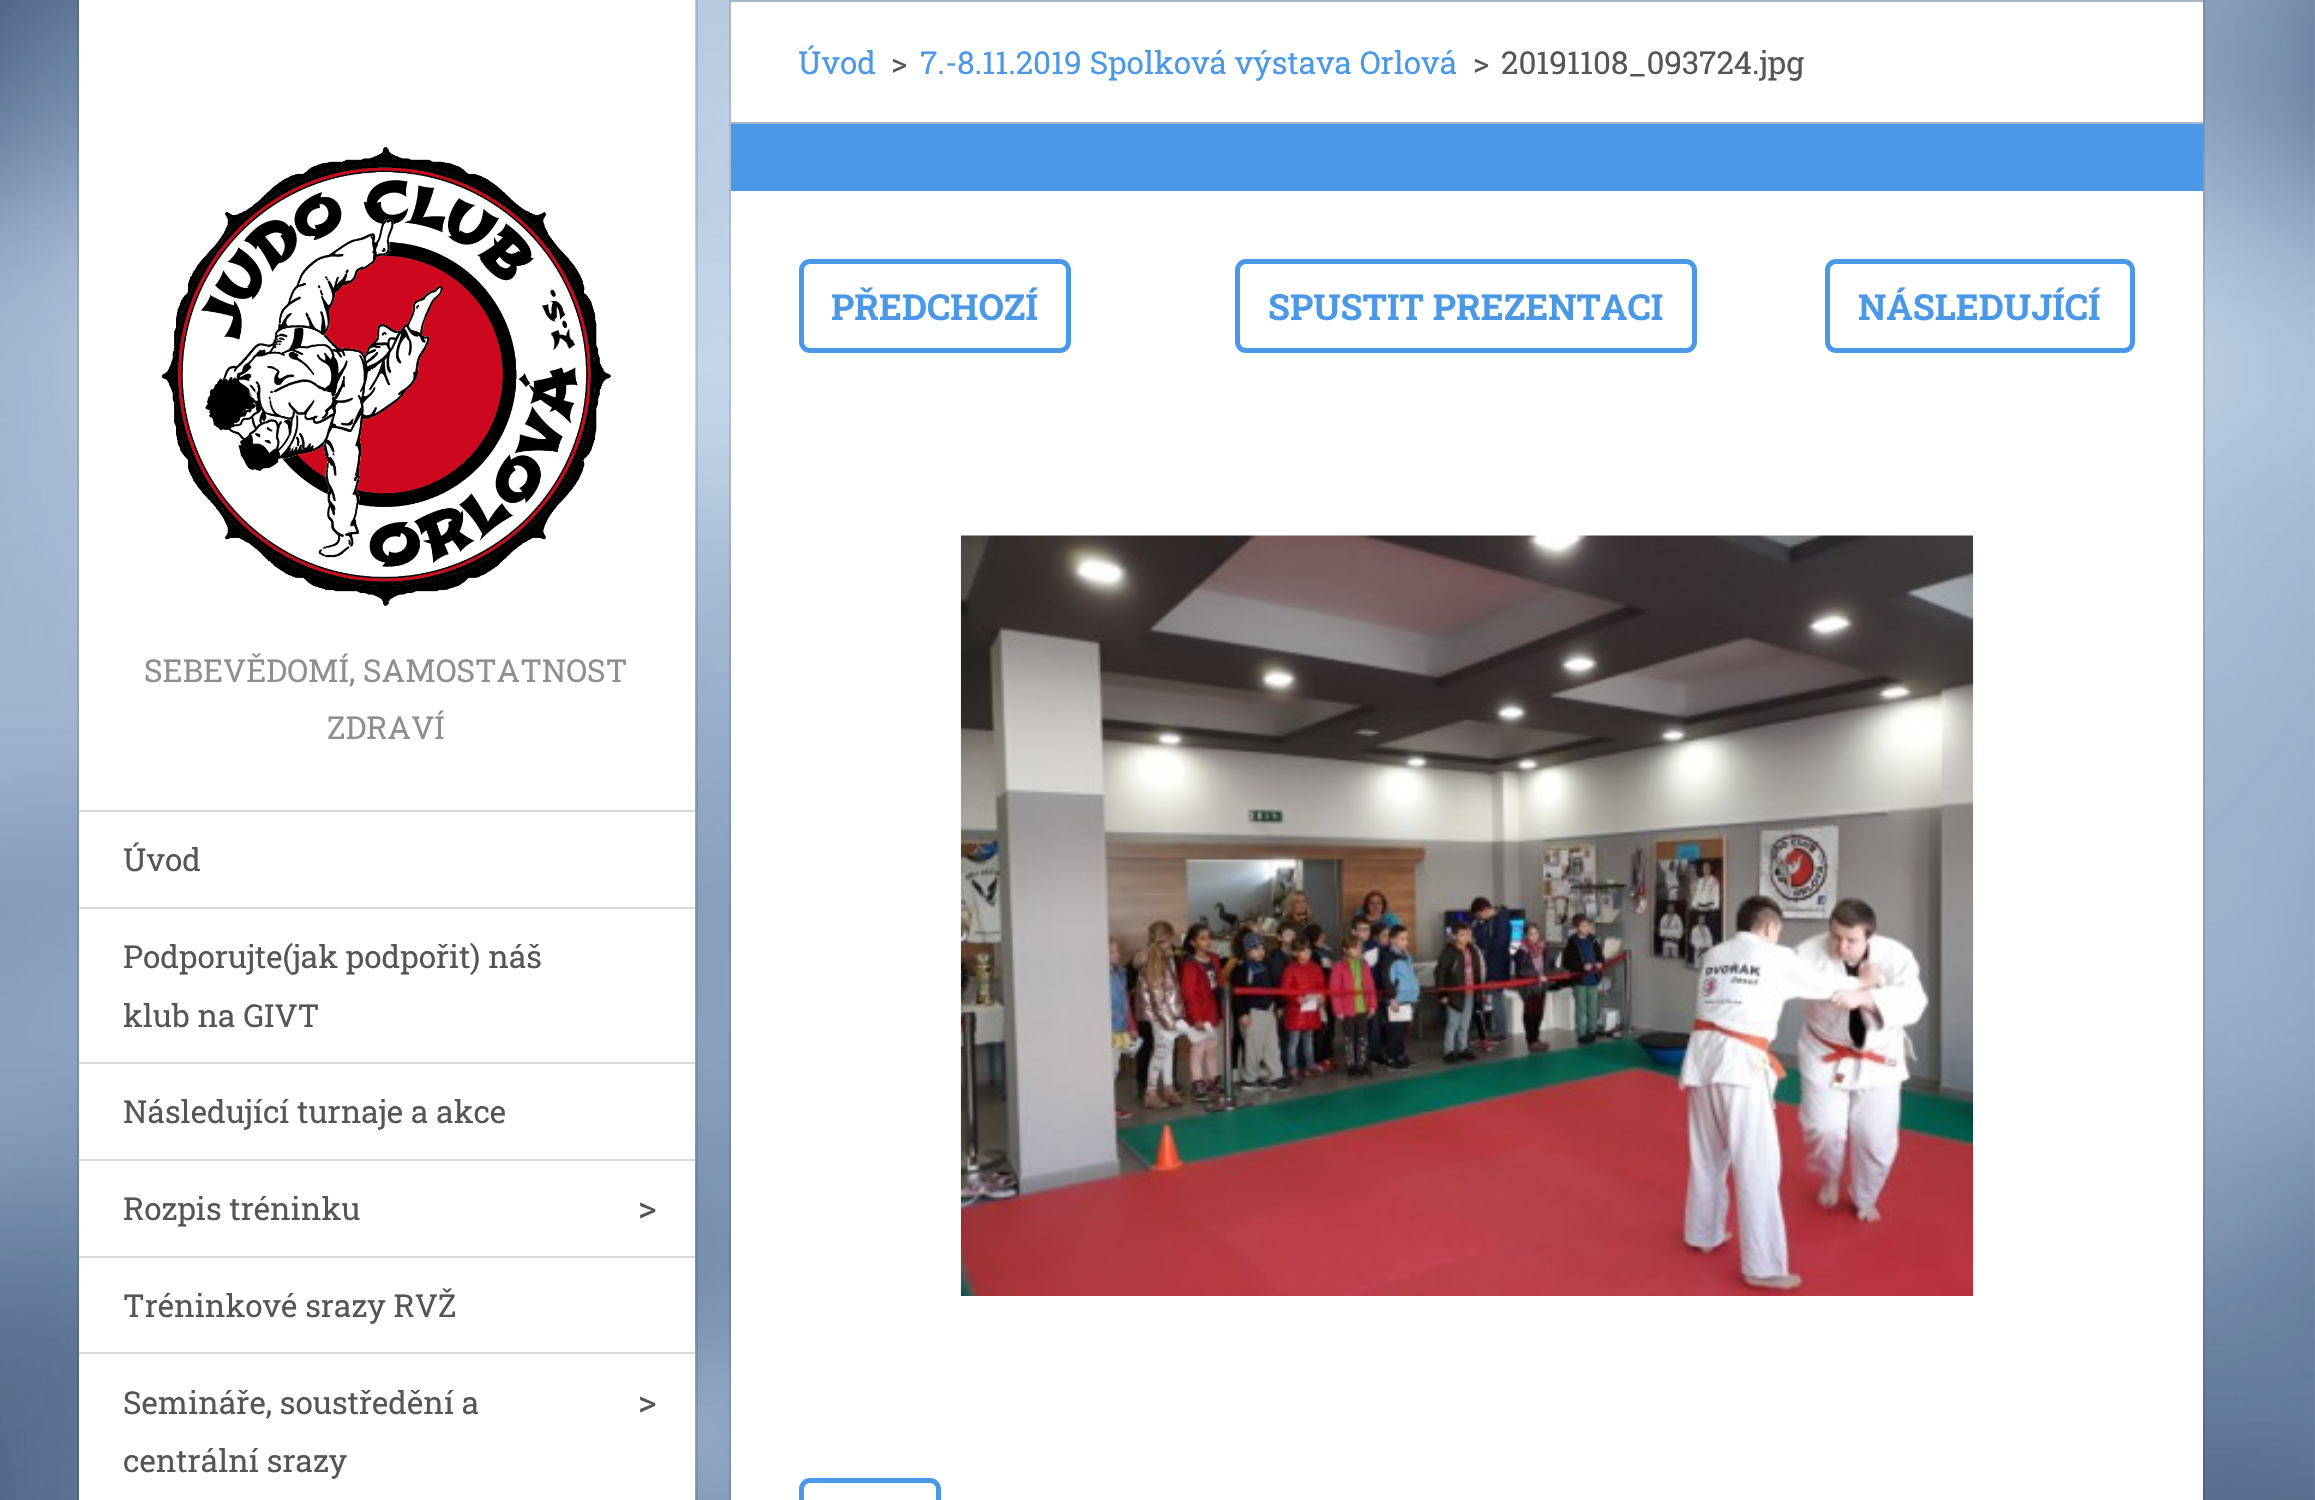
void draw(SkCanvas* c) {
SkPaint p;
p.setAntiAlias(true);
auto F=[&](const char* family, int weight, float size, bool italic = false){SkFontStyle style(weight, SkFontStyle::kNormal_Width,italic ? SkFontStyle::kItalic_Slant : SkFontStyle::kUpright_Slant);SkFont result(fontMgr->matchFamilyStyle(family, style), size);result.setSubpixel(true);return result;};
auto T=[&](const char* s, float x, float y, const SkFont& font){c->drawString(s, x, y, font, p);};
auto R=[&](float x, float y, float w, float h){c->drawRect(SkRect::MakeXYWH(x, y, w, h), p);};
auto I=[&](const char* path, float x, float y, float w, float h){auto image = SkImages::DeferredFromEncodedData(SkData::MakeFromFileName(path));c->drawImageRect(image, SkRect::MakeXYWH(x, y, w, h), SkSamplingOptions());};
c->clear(0xffffffff);
I("1.png",0,0,2315,1500);
p.setColor(0xffffffff);
R(731,2,1472,120);
p.setColor(0xffaab9ca);
R(731,0,1472,2);
p.setStroke(true);
p.setStrokeWidth(2);
p.setColor(0x1a000000);
c->drawRect(SkRect::MakeXYWH(730,-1,1474,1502),p);
auto f1 = F("Roboto Slab",400,31.5);
p.setStroke(false);
p.setColor(0xff4b98e7);
T("Úvod",798,74,f1);
p.setColor(0xff555555);
T(">",891,74,f1);
p.setColor(0xff4b98e7);
T("7.-8.11.2019 Spolková výstava Orlová",920,74,f1);
p.setColor(0xff555555);
T(">",1473,74,f1);
T("20191108_093724.jpg",1501,74,f1);
p.setColor(0xffaab9ca);
R(731,122,1472,2);
p.setColor(0xff4b98e7);
R(731,124,1472,67);
p.setColor(0xffffffff);
R(731,191,1472,1309);
p.setStroke(true);
p.setStrokeWidth(5);
p.setColor(0xff4b98e7);
c->drawRoundRect(SkRect::MakeXYWH(801.5,261.5,267,89),8.5,8.5,p);
auto f2 = F("Roboto Slab",700,36);
p.setStroke(false);
T("PŘEDCHOZÍ",831,320,f2);
p.setStroke(true);
c->drawRoundRect(SkRect::MakeXYWH(1237.5,261.5,457,89),8.5,8.5,p);
p.setStroke(false);
T("SPUSTIT PREZENTACI",1268,320,f2);
p.setStroke(true);
c->drawRoundRect(SkRect::MakeXYWH(1827.5,261.5,305,89),8.5,8.5,p);
p.setStroke(false);
T("NÁSLEDUJÍCÍ",1858,320,f2);
I("2.png",960,535,1014,761);
p.setStroke(true);
c->drawRoundRect(SkRect::MakeXYWH(801.5,1480.5,137,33),8.5,8.5,p);
p.setStroke(false);
p.setColor(0xffffffff);
R(79,0,616,1500);
p.setStroke(true);
p.setStrokeWidth(2);
p.setColor(0x1a000000);
c->drawRect(SkRect::MakeXYWH(78,-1,619,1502),p);
I("3.png",161,146,450,460);
p.setStroke(false);
p.setColor(0xff8f8f8f);
T("SEBEVĚDOMÍ, SAMOSTATNOST",144,682,f1);
T("ZDRAVÍ",327,739,f1);
p.setColor(0xffd9d9d9);
R(79,810,616,2);
p.setColor(0xff555555);
T("Úvod",123,871,f1);
p.setColor(0xffd9d9d9);
R(79,907,616,2);
p.setColor(0xff555555);
T("Podporujte(jak podpořit) náš",123,968,f1);
T("klub na GIVT",123,1027,f1);
p.setColor(0xffd9d9d9);
R(79,1062,616,2);
p.setColor(0xff555555);
T("Následující turnaje a akce",123,1123,f1);
p.setColor(0xffd9d9d9);
R(79,1159,616,2);
p.setColor(0xff555555);
T("Rozpis tréninku",123,1220,f1);
auto f3 = F("Roboto Slab",400,36);
T(">",638,1220,f3);
p.setColor(0xffd9d9d9);
R(79,1256,616,2);
p.setColor(0xff555555);
T("Tréninkové srazy RVŽ",123,1317,f1);
p.setColor(0xffd9d9d9);
R(79,1352,616,2);
p.setColor(0xff555555);
T("Semináře, soustředění a",123,1414,f1);
T("centrální srazy",123,1472,f1);
T(">",638,1414,f3);
}
